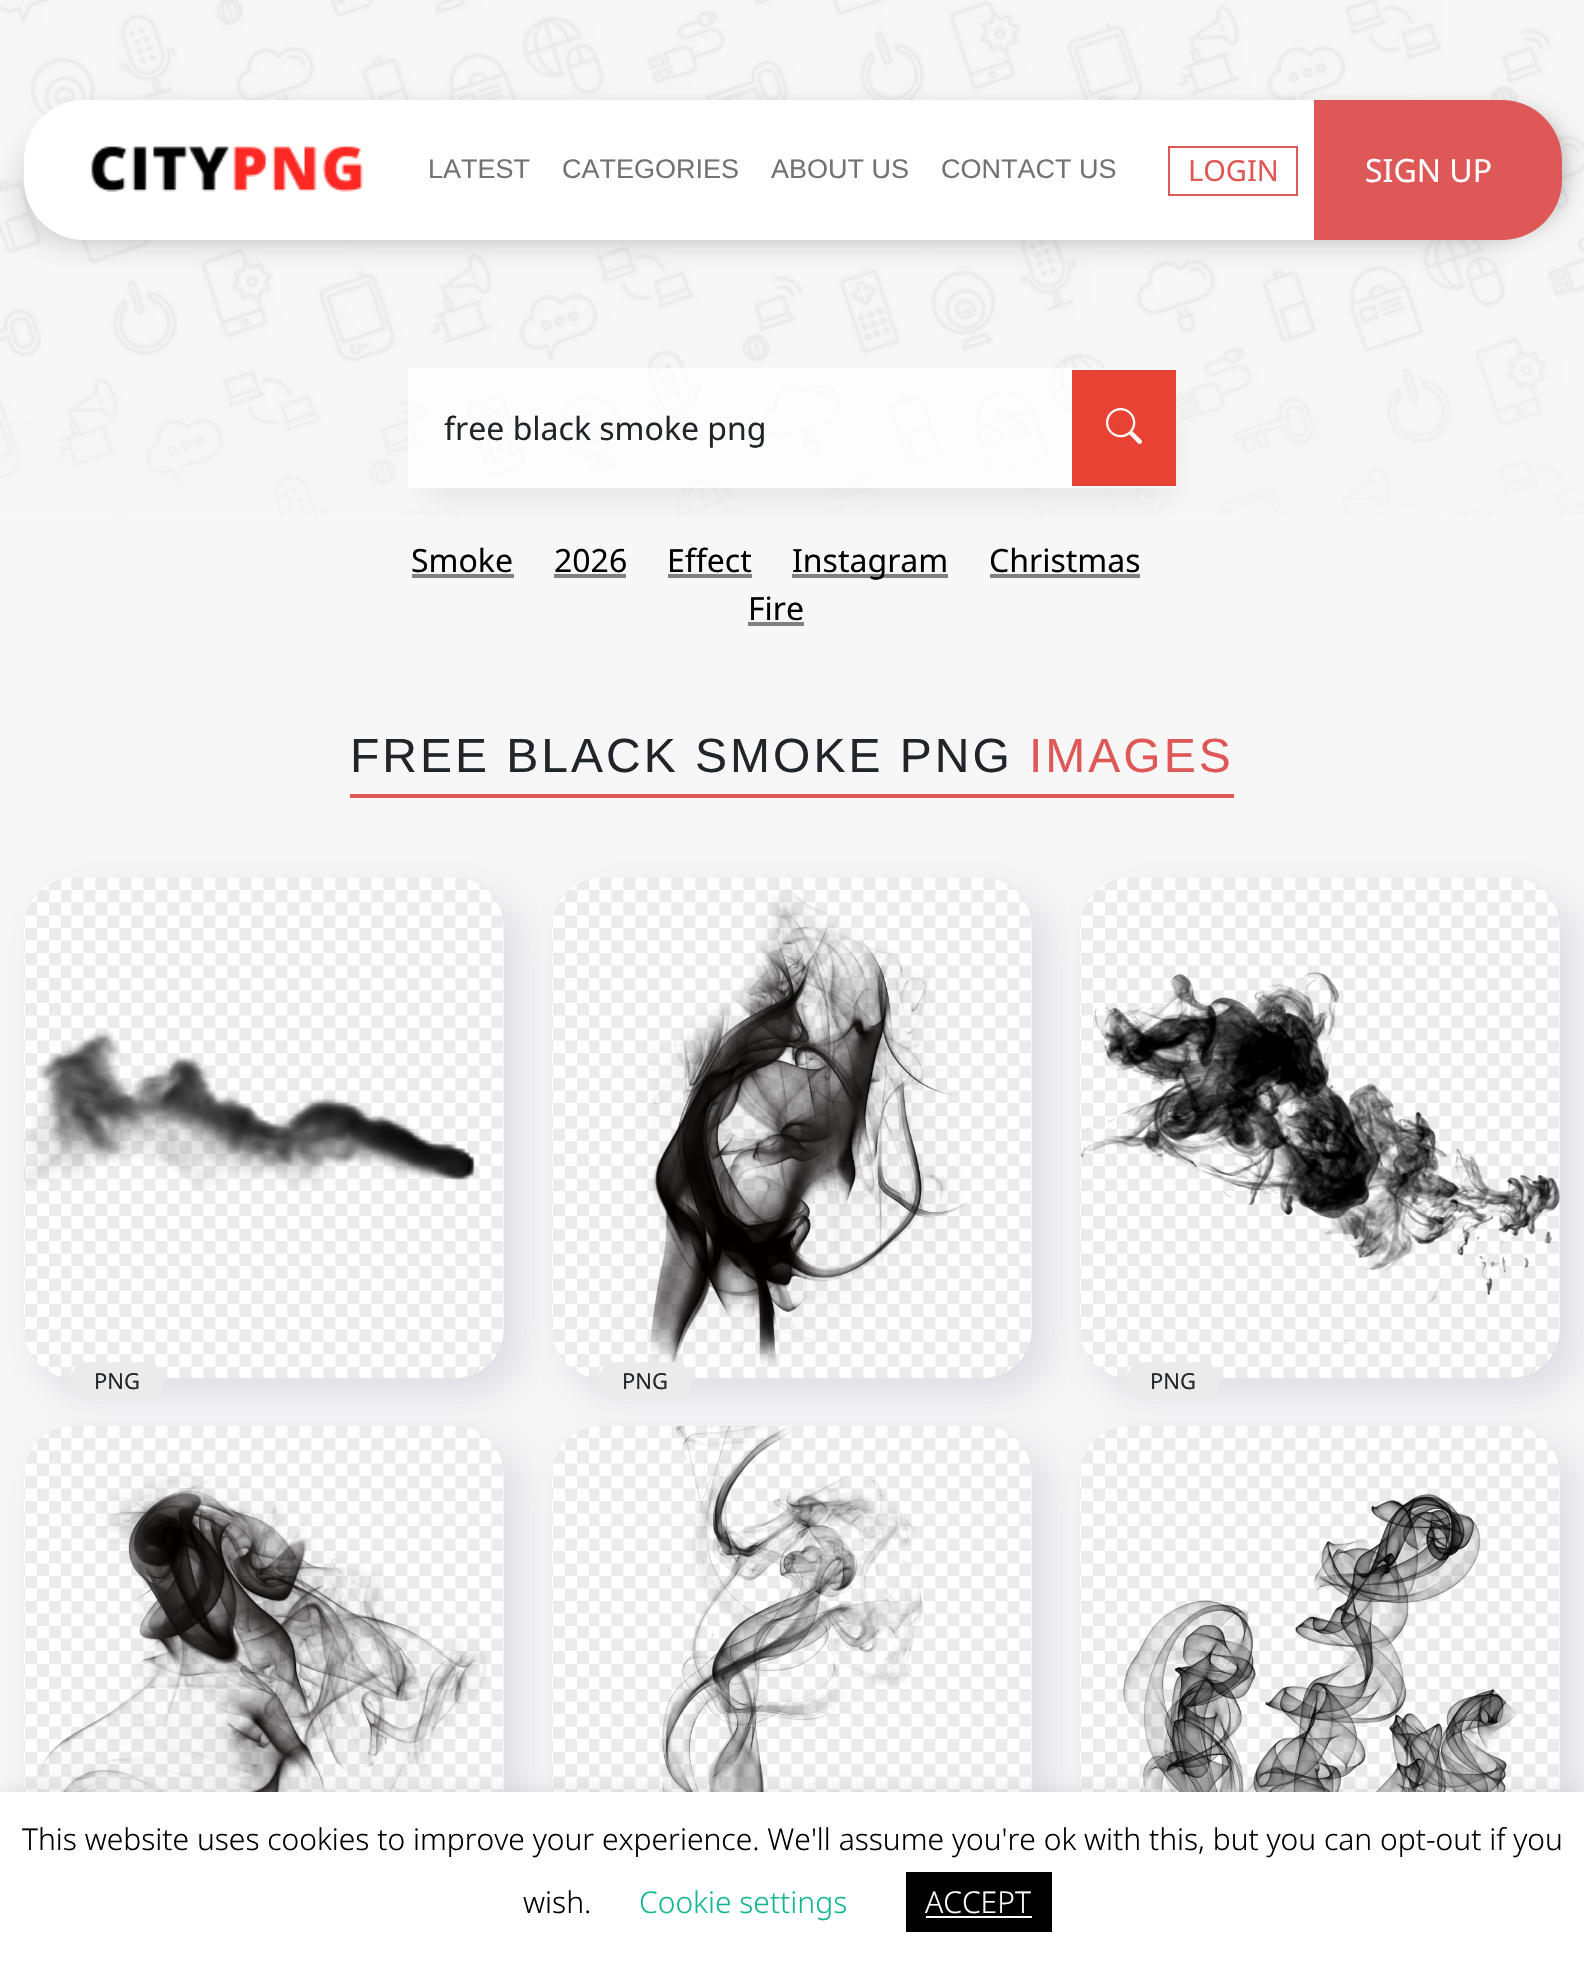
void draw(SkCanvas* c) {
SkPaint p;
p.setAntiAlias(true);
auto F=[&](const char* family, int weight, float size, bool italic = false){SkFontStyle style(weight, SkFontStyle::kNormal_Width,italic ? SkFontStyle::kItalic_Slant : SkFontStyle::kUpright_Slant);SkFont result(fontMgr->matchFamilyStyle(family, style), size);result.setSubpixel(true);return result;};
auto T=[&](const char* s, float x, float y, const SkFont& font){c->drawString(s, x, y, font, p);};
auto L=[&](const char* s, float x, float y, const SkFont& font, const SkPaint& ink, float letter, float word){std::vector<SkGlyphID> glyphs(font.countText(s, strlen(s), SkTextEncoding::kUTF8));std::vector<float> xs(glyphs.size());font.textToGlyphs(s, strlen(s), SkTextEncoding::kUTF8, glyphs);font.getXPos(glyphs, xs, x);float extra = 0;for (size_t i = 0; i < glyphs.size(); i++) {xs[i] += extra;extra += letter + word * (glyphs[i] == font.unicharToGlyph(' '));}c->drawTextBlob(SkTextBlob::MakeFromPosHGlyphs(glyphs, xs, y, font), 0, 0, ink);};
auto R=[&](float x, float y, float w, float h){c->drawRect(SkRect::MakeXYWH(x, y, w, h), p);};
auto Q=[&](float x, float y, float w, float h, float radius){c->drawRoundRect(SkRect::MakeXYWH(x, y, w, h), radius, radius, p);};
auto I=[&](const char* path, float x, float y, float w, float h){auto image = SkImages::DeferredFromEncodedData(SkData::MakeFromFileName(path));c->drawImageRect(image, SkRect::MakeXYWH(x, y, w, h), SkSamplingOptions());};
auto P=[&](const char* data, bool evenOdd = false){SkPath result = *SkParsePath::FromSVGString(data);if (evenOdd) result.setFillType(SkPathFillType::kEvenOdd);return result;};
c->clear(0xfff7f7f7);
I("1.png",0,0,1584,516);
p.setColor(0xbf4f4a4a);
p.setMaskFilter(SkMaskFilter::MakeBlur(kNormal_SkBlurStyle, 15));
c->drawRoundRect(SkRect::MakeXYWH(60,120,1496,100),40,40,p);
p.setMaskFilter(nullptr);
p.setColor(0x33262525);
p.setMaskFilter(SkMaskFilter::MakeBlur(kNormal_SkBlurStyle, 15));
c->drawRoundRect(SkRect::MakeXYWH(24,134,1504,108),44,44,p);
p.setMaskFilter(nullptr);
p.setColor(0xffffffff);
Q(24,100,1536,140,60);
I("2.png",91,146,272,46);
auto f1 = F("Liberation Sans",400,27);
p.setColor(0xff737373);
T("LATEST",428,178,f1);
T("CATEGORIES",562,178,f1);
T("ABOUT US",771,178,f1);
T("CONTACT US",941,178,f1);
p.setStroke(true);
p.setStrokeWidth(2);
p.setColor(0xffdf5858);
c->drawRect(SkRect::MakeXYWH(1169,147,128,48),p);
auto f2 = F("Noto Sans",400,29);
p.setStroke(false);
T("LOGIN",1188,181,f2);
c->drawPath(P("M1314 100h188c33 0 60 27 60 60v20c0 33-27 60-60 60h-188z"),p);
auto f3 = F("Noto Sans",400,32);
p.setColor(0xffffffff);
T("SIGN UP",1365,182,f3);
c->save();
c->clipPath(P("M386 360h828v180h-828zm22 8h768v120h-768z",true),true);
p.setColor(0x1a262525);
p.setMaskFilter(SkMaskFilter::MakeBlur(kNormal_SkBlurStyle, 15));
c->drawRect(SkRect::MakeXYWH(432,406,736,88),p);
p.setMaskFilter(nullptr);
c->restore();
p.setColor(0xbfffffff);
R(408,368,768,120);
p.setColor(0xff212529);
T("free black smoke png",444,440,f3);
p.setColor(0xffe74233);
R(1072,370,104,116);
I("3.png",1106,408,36,36);
p.setColor(0xff000000);
T("Smoke",411,572,f3);
p.setColor(0xff808080);
R(412,574,102,4);
p.setColor(0xff000000);
T("2026",554,572,f3);
p.setColor(0xff808080);
R(554,574,72,4);
p.setColor(0xff000000);
T("Effect",667,572,f3);
p.setColor(0xff808080);
R(668,574,84,4);
R(792,574,156,4);
p.setColor(0xff000000);
T("Instagram",792,572,f3);
T("Christmas",989,572,f3);
p.setColor(0xff808080);
R(990,574,150,4);
p.setColor(0xff000000);
T("Fire",748,620,f3);
p.setColor(0xff808080);
R(748,622,56,4);
p.setColor(0xffdf5858);
R(350,794,884,4);
auto f4 = F("Liberation Sans",400,48);
p.setColor(0xff212529);
L("FREE BLACK SMOKE PNG",350,772,f4,p,3,0);
p.setColor(0xffdf5858);
L("IMAGES",1029,772,f4,p,3,0);
p.setColor(0xbfd3d3dd);
p.setMaskFilter(SkMaskFilter::MakeBlur(kNormal_SkBlurStyle, 19));
c->drawRoundRect(SkRect::MakeXYWH(40,894,480,500),48,48,p);
p.setMaskFilter(nullptr);
I("4.png",24,878,480,500);
p.setColor(0xffebebeb);
Q(70,1362,94,38,19);
auto f5 = F("Noto Sans",400,22);
p.setColor(0xff212529);
T("PNG",94,1389,f5);
p.setColor(0xbfd3d3dd);
p.setMaskFilter(SkMaskFilter::MakeBlur(kNormal_SkBlurStyle, 19));
c->drawRoundRect(SkRect::MakeXYWH(568,894,480,500),48,48,p);
p.setMaskFilter(nullptr);
I("5.png",552,878,480,500);
p.setColor(0xffebebeb);
Q(598,1362,94,38,19);
p.setColor(0xff212529);
T("PNG",622,1389,f5);
p.setColor(0xbfd3d3dd);
p.setMaskFilter(SkMaskFilter::MakeBlur(kNormal_SkBlurStyle, 19));
c->drawRoundRect(SkRect::MakeXYWH(1096,894,480,500),48,48,p);
p.setMaskFilter(nullptr);
I("6.png",1080,878,480,500);
p.setColor(0xffebebeb);
Q(1126,1362,94,38,19);
p.setColor(0xff212529);
T("PNG",1150,1389,f5);
p.setColor(0xbfd3d3dd);
p.setMaskFilter(SkMaskFilter::MakeBlur(kNormal_SkBlurStyle, 19));
c->drawRoundRect(SkRect::MakeXYWH(40,1442,480,500),48,48,p);
p.setMaskFilter(nullptr);
I("7.png",24,1426,480,366);
p.setMaskFilter(SkMaskFilter::MakeBlur(kNormal_SkBlurStyle, 19));
c->drawRoundRect(SkRect::MakeXYWH(568,1442,480,500),48,48,p);
p.setMaskFilter(nullptr);
I("8.png",552,1426,480,366);
p.setMaskFilter(SkMaskFilter::MakeBlur(kNormal_SkBlurStyle, 19));
c->drawRoundRect(SkRect::MakeXYWH(1096,1442,480,500),48,48,p);
p.setMaskFilter(nullptr);
I("9.png",1080,1426,480,366);
p.setColor(0x4dacabab);
p.setMaskFilter(SkMaskFilter::MakeBlur(kNormal_SkBlurStyle, 10));
c->drawRect(SkRect::MakeXYWH(0,1790,1584,174),p);
p.setMaskFilter(nullptr);
p.setColor(0xffffffff);
R(0,1792,1584,174);
auto f6 = F("Noto Sans",300,30);
p.setColor(0xff000000);
T("This website uses cookies to improve your experience. We'll assume you're ok with this, but you can opt-out if you",22,1850,f6);
T("wish.",523,1913,f6);
p.setColor(0xff14b694);
T("Cookie settings",639,1913,f6);
p.setColor(0xff000000);
R(906,1872,146,60);
p.setColor(0xffffffff);
T("ACCEPT",925,1913,f6);
R(926,1916,106,2);
}
